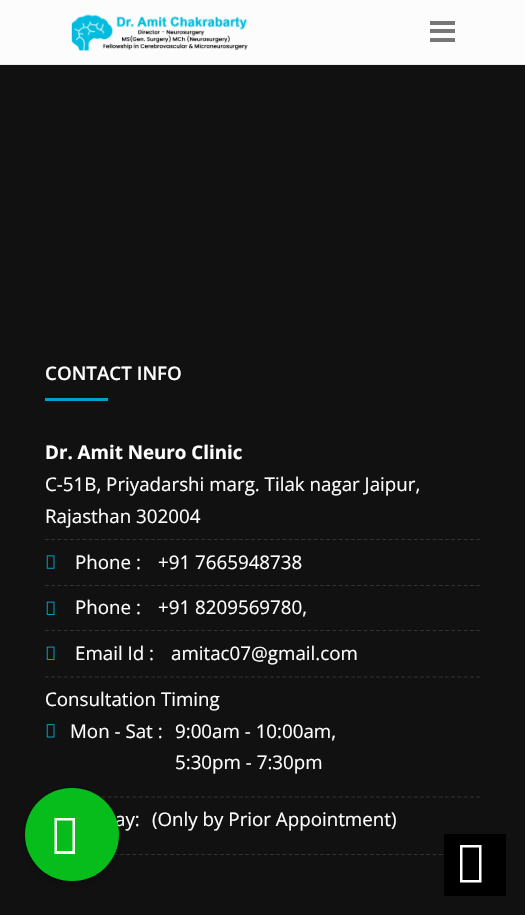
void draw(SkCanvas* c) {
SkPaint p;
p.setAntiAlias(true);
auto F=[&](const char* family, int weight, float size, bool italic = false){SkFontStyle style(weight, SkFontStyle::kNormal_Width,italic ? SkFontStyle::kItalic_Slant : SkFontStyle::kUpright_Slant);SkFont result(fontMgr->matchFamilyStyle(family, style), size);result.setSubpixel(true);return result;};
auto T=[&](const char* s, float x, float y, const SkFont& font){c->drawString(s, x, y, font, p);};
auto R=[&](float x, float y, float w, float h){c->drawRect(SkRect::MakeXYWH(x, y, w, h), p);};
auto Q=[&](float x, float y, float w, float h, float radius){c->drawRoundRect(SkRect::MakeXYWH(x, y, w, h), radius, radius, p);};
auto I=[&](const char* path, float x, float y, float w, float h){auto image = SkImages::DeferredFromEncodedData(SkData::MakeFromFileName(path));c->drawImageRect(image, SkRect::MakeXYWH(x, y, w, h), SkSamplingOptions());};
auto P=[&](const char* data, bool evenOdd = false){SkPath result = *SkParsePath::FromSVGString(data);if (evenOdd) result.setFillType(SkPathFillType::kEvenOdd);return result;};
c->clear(0xff111111);
p.setColor(0xfffcfcfc);
R(0,0,525,64);
p.setColor(0xffeeeeee);
R(0,64,525,1);
I("1.png",71,14,177,37);
p.setColor(0xff777777);
R(430,21,25,4);
R(430,29,25,4);
R(430,38,25,4);
auto f1 = F("Open Sans",600,18.75);
p.setColor(0xffffffff);
T("CONTACT INFO",45,380,f1);
p.setColor(0xff00a3c8);
R(45,398,63,3);
p.setStroke(true);
p.setStrokeWidth(1.2);
p.setColor(0xff333333);
p.setPathEffect(SkDashPathEffect::Make({{3.75f,2.5f}}, 0));
c->drawPath(P("M45 539.5h435"),p);
p.setPathEffect(nullptr);
auto f2 = F("Open Sans",700,18.75);
p.setStroke(false);
p.setColor(0xffffffff);
T("Dr. Amit Neuro Clinic",45,459,f2);
auto f3 = F("Open Sans",400,18.75);
T("C-51B, Priyadarshi marg. Tilak nagar Jaipur,",45,491,f3);
T("Rajasthan 302004",45,523,f3);
p.setStroke(true);
p.setColor(0xff333333);
p.setPathEffect(SkDashPathEffect::Make({{3.75f,2.5f}}, 0));
c->drawPath(P("M45 585.5h435"),p);
p.setPathEffect(nullptr);
I("2.png",46,555,9,14);
p.setStroke(false);
p.setColor(0xffffffff);
T("Phone :",75,569,f3);
T("+91 7665948738",158,569,f3);
p.setStroke(true);
p.setColor(0xff333333);
p.setPathEffect(SkDashPathEffect::Make({{3.75f,2.5f}}, 0));
c->drawPath(P("M45 630.5h435"),p);
p.setPathEffect(nullptr);
I("3.png",46,601,9,14);
p.setStroke(false);
p.setColor(0xffffffff);
T("Phone :",75,614,f3);
T("+91 8209569780,",158,614,f3);
p.setStroke(true);
p.setColor(0xff333333);
p.setPathEffect(SkDashPathEffect::Make({{3.75f,2.5f}}, 0));
c->drawPath(P("M45 677h435"),p);
p.setPathEffect(nullptr);
I("3.png",46,646,9,14);
p.setStroke(false);
p.setColor(0xffffffff);
T("Email Id :",75,660,f3);
T("amitac07@gmail.com",171,660,f3);
p.setStroke(true);
p.setColor(0xff333333);
p.setPathEffect(SkDashPathEffect::Make({{3.75f,2.5f}}, 0));
c->drawPath(P("M45 797h435"),p);
p.setPathEffect(nullptr);
p.setStroke(false);
p.setColor(0xffffffff);
T("Consultation Timing",45,706,f3);
I("4.png",46,724,9,14);
T("Mon - Sat :",70,738,f3);
T("9:00am - 10:00am,",175,738,f3);
T("5:30pm - 7:30pm",175,769,f3);
p.setStroke(true);
p.setColor(0xff333333);
p.setPathEffect(SkDashPathEffect::Make({{3.75f,2.5f}}, 0));
c->drawPath(P("M45 854.5h435"),p);
p.setPathEffect(nullptr);
p.setStroke(false);
p.setColor(0xffffffff);
T("ay:",115,826,f3);
T("(Only by Prior Appointment)",152,826,f3);
p.setColor(0xff000000);
R(444,834,62,62);
p.setColor(0xffffffff);
c->drawPath(P("M460 882.5v-37.5h21.5v37.5zm2.5-2.5h16.5v-32.5h-16.5z"),p);
p.setColor(0x3d000000);
p.setMaskFilter(SkMaskFilter::MakeBlur(kNormal_SkBlurStyle, 5));
c->drawRoundRect(SkRect::MakeXYWH(25,791,94,94),47,47,p);
p.setMaskFilter(nullptr);
p.setColor(0xff06bd1b);
Q(25,788,94,93,46.5);
p.setColor(0xffffffff);
c->drawPath(P("M54.5 854v-36h20.5v36zm2.5-3h15.5v-30.5h-15.5z"),p);
}
